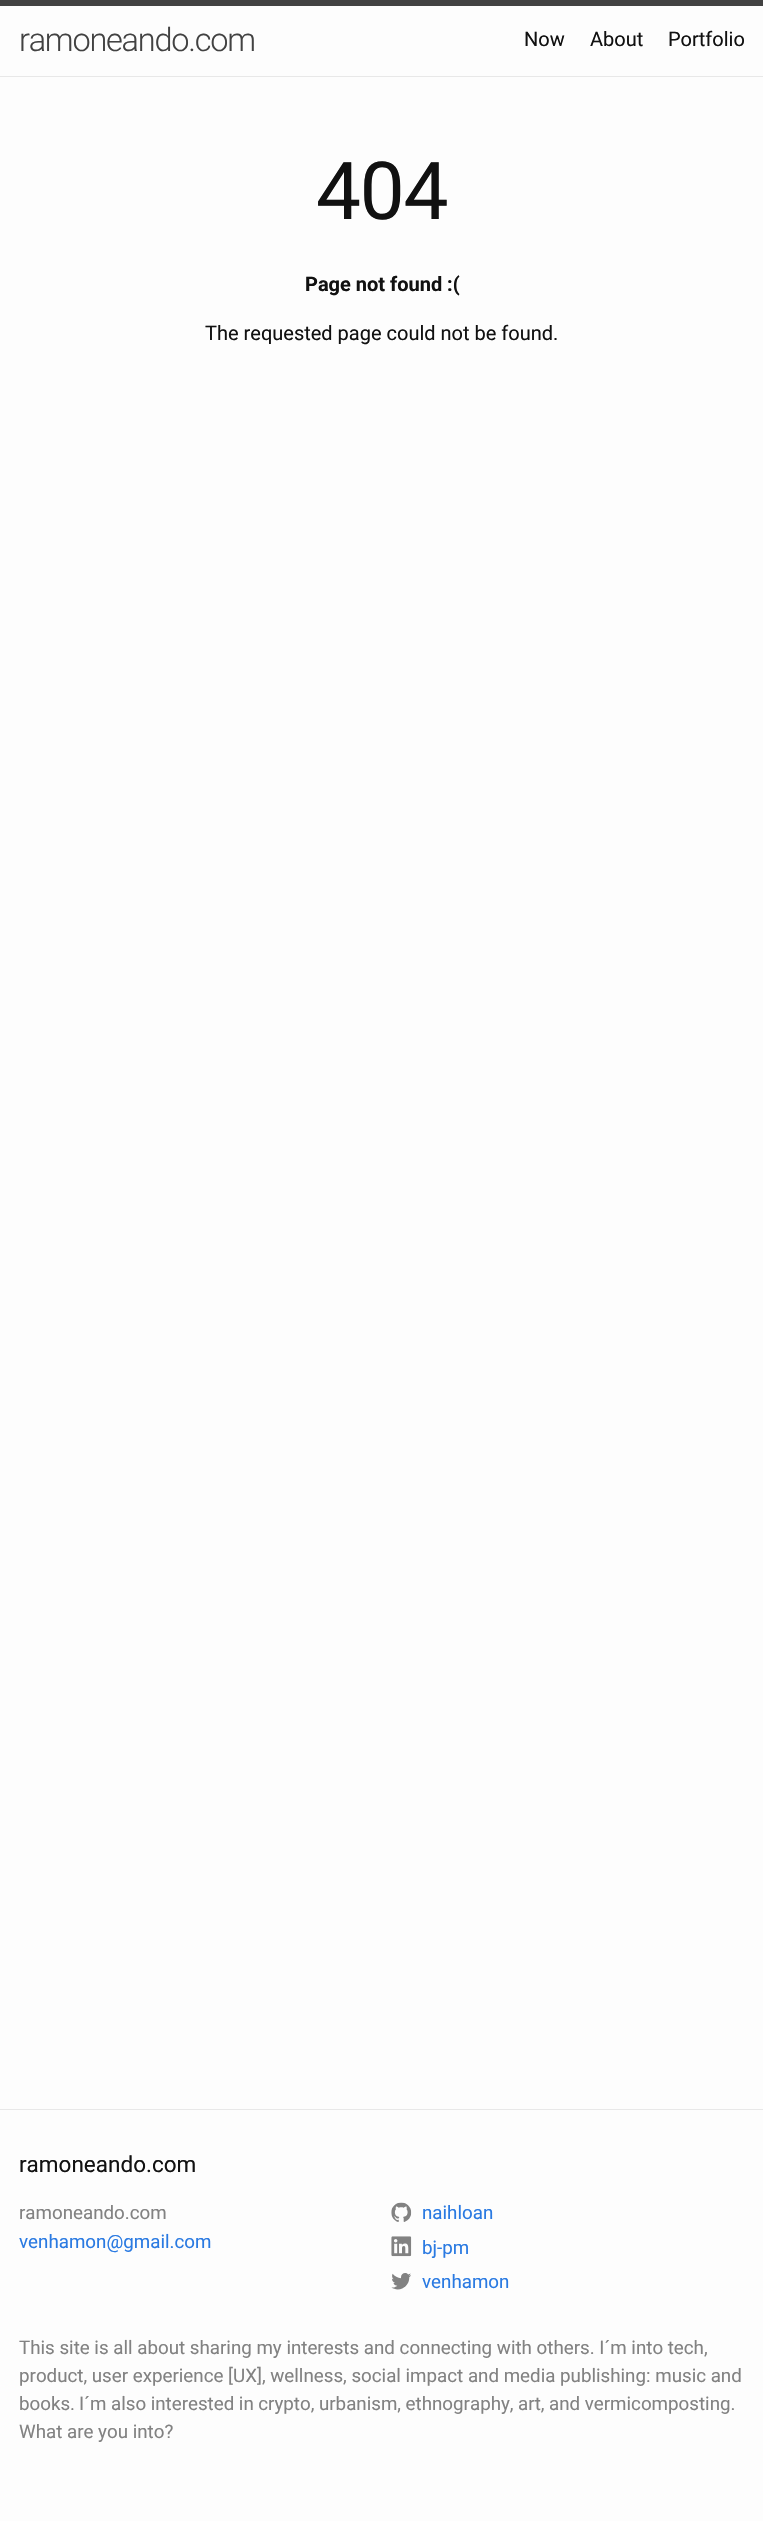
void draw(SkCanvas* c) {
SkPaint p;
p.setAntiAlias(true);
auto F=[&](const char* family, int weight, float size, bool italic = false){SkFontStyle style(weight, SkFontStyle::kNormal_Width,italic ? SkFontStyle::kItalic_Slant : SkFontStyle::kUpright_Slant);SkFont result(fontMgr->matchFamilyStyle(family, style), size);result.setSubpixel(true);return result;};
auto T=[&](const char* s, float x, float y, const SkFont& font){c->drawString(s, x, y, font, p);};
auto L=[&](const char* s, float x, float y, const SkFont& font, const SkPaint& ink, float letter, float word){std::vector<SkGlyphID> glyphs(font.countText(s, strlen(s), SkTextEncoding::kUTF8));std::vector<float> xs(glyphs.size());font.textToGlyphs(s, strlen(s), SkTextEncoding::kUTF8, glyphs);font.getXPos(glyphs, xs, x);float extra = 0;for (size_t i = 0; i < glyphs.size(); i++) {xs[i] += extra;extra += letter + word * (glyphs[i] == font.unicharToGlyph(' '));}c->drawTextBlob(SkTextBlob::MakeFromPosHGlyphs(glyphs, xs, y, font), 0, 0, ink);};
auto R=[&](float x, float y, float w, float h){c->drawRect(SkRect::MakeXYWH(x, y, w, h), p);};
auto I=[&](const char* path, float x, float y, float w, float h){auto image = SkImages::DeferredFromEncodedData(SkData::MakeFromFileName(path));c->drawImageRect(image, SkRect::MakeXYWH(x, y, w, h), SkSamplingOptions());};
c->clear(0xfffdfdfd);
p.setColor(0xff424242);
R(0,0,763,6);
p.setColor(0xffe8e8e8);
R(0,76,763,1);
auto f1 = F("Roboto",300,32.5);
p.setColor(0xff424242);
L("ramoneando.com",19,51,f1,p,-1.25,0);
auto f2 = F("Roboto",400,20);
p.setColor(0xff111111);
T("Now",524,46,f2);
T("About",590,46,f2);
T("Portfolio",668,46,f2);
auto f3 = F("Roboto",400,80);
L("404",316,219,f3,p,-1.25,0);
auto f4 = F("Roboto",700,20);
T("Page not found :(",305,291,f4);
T("The requested page could not be found.",205,340,f2);
p.setColor(0xffe8e8e8);
R(0,2109,763,1);
auto f5 = F("Roboto",400,22.5);
p.setColor(0xff111111);
T("ramoneando.com",19,2172,f5);
auto f6 = F("Roboto",400,18.75);
p.setColor(0xff828282);
T("ramoneando.com",19,2219,f6);
p.setColor(0xff2a7ae2);
T("venhamon@gmail.com",19,2248,f6);
I("1.png",391,2202,21,20);
T("naihloan",422,2219,f6);
I("2.png",391,2236,21,21);
T("bj-pm",422,2254,f6);
I("3.png",391,2273,20,17);
T("venhamon",422,2288,f6);
p.setColor(0xff828282);
T("This site is all about sharing my interests and connecting with others. I´m into tech,",19,2354,f6);
T("product, user experience [UX], wellness, social impact and media publishing: music and",19,2382,f6);
T("books.",19,2410,f6);
L("I´m also interested in crypto, urbanism, ethnography, art, and vermicomposting.",79,2410,f6,p,0,-.1);
T("What are you into?",19,2438,f6);
}
